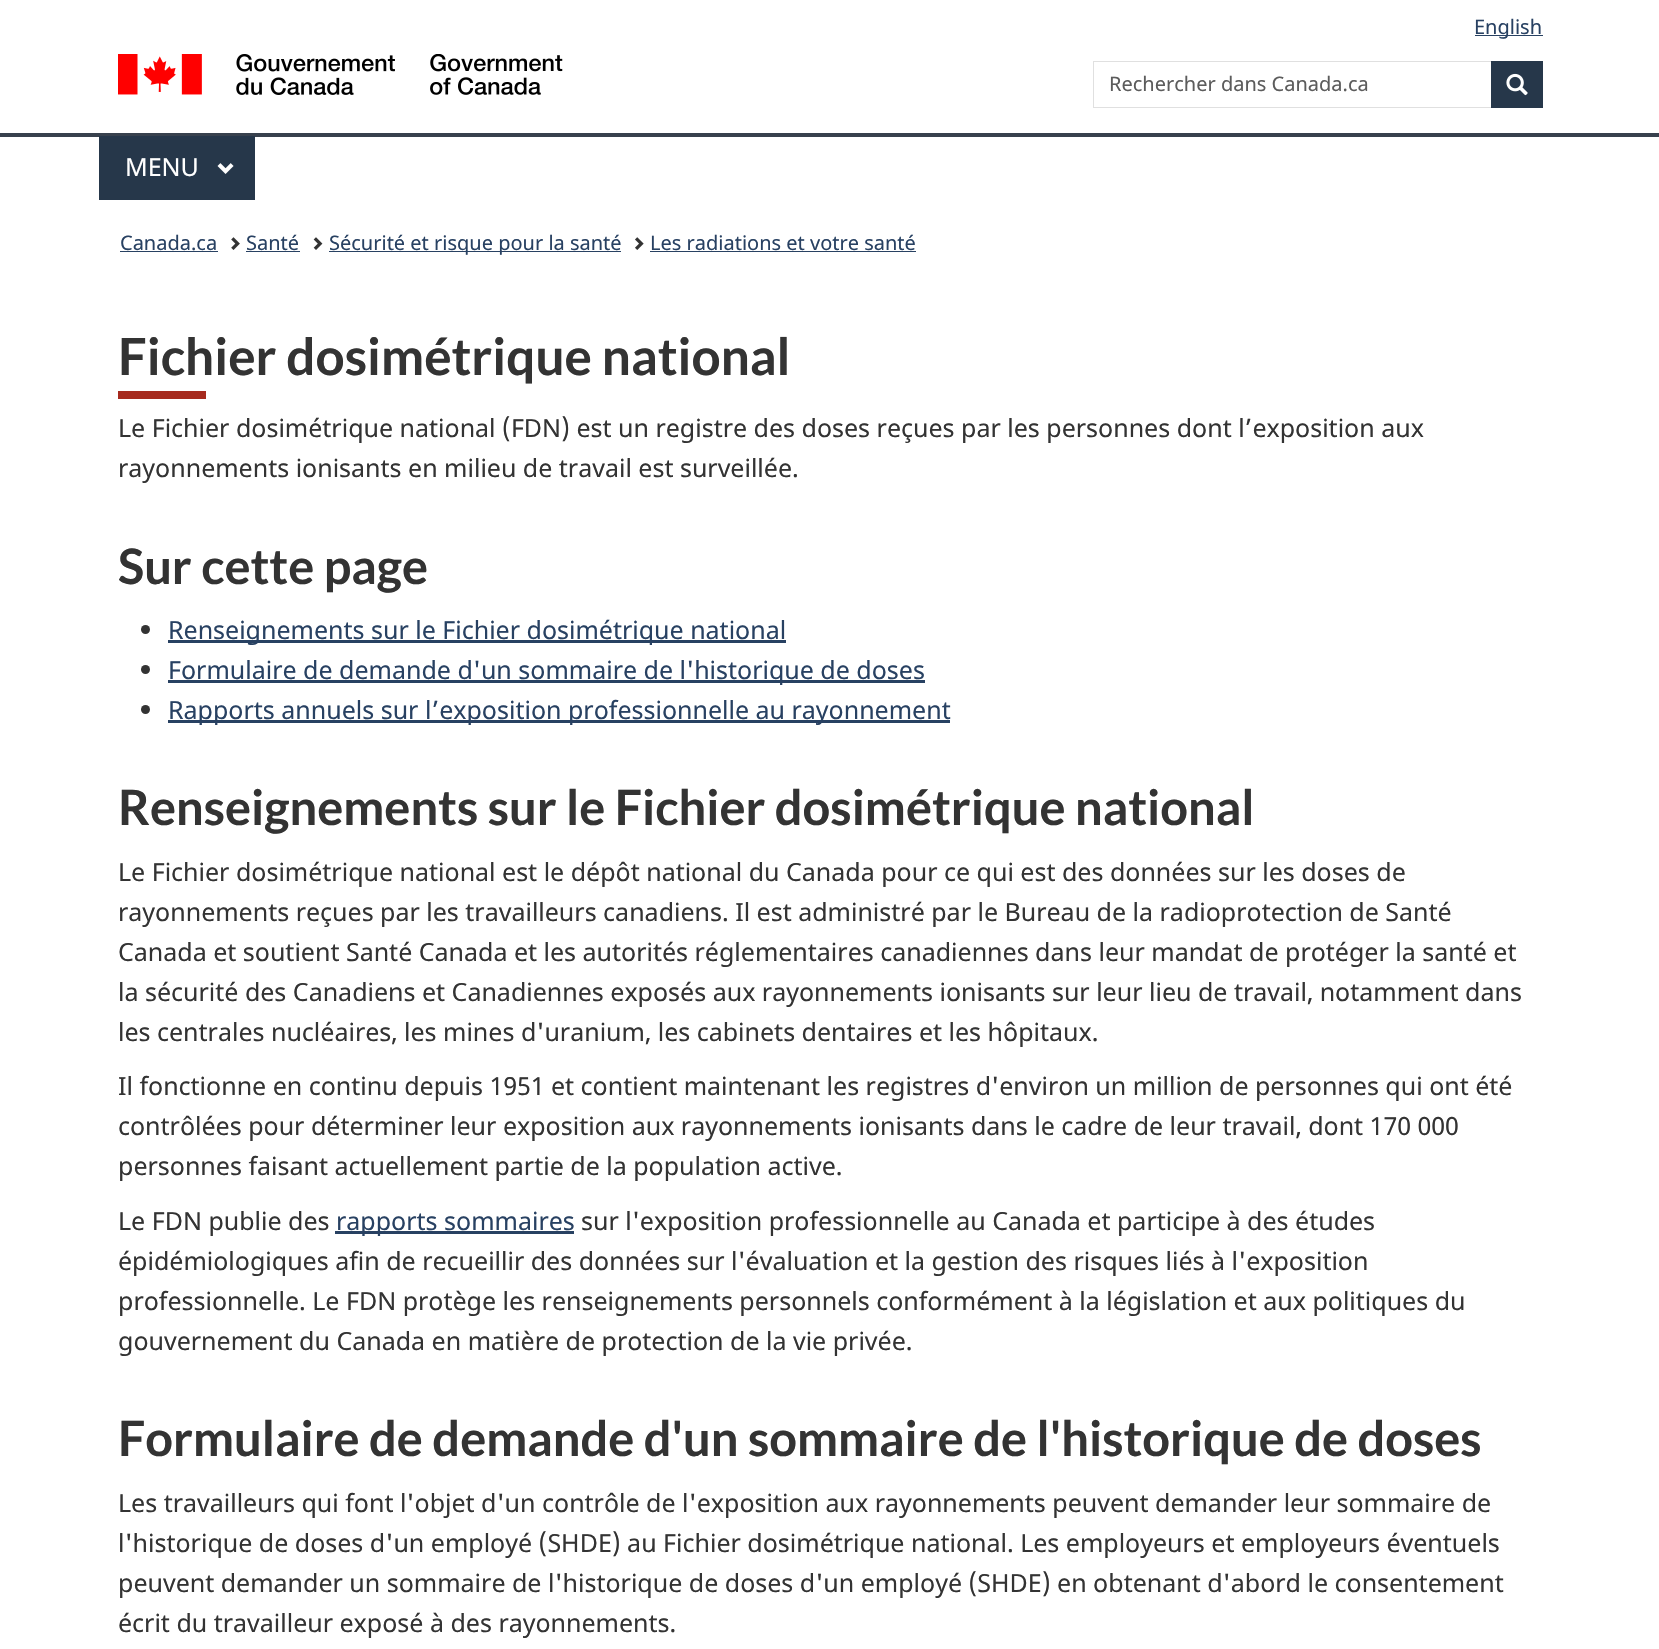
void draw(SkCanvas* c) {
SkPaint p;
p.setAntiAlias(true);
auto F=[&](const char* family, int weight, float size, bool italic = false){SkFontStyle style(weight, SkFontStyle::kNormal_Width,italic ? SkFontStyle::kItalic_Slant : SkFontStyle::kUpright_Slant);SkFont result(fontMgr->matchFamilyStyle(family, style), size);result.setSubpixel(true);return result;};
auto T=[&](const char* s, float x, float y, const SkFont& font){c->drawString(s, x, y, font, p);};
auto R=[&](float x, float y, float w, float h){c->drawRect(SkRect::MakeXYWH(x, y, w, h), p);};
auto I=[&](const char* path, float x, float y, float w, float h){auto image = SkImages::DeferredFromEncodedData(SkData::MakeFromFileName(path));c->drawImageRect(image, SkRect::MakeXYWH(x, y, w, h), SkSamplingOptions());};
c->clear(0xffffffff);
p.setColor(0xff284162);
R(1475,35,68,1);
auto f1 = F("Noto Sans",400,20);
T("English",1474,34,f1);
I("1.png",118,54,445,41);
p.setStroke(true);
p.setStrokeWidth(1);
p.setColor(0xffe0e0e0);
c->drawRect(SkRect::MakeXYWH(1093.5,61.5,449,46),p);
p.setStroke(false);
p.setColor(0xff5c5c5c);
T("Rechercher dans Canada.ca",1109,91,f1);
p.setColor(0xff26374a);
R(1491,61,52,47);
I("2.png",1506,73,22,23);
p.setColor(0xff38414d);
R(0,133,1659,4);
p.setColor(0xff26374a);
R(99,136,156,64);
auto f2 = F("Noto Sans",400,25);
p.setColor(0xffffffff);
T("MENU",125,176,f2);
I("3.png",217,163,17,11);
p.setColor(0xff284162);
T("Canada.ca",120,250,f1);
R(120,251,98,1);
I("4.png",231,237,9,13);
T("Santé",246,250,f1);
R(246,251,54,1);
I("5.png",313,237,10,13);
R(329,251,292,1);
T("Sécurité et risque pour la santé",329,250,f1);
I("6.png",635,237,9,13);
T("Les radiations et votre santé",650,250,f1);
R(650,251,266,1);
p.setColor(0xffa62a1e);
R(118,391,88,8);
auto f3 = F("Lato",700,51.25);
p.setColor(0xff333333);
T("Fichier dosimétrique national",118,375,f3);
T("Le Fichier dosimétrique national (FDN) est un registre des doses reçues par les personnes dont l’exposition aux",118,437,f2);
T("rayonnements ionisants en milieu de travail est surveillée.",118,477,f2);
auto f4 = F("Lato",700,48.75);
T("Sur cette page",118,584,f4);
c->drawCircle(145.5,629.5,4.5,p);
p.setColor(0xff284162);
R(168,640,618,3);
T("Renseignements sur le Fichier dosimétrique national",168,639,f2);
p.setColor(0xff333333);
c->drawCircle(145.5,669.5,4.5,p);
p.setColor(0xff284162);
R(168,680,757,3);
T("Formulaire de demande d'un sommaire de l'historique de doses",168,679,f2);
p.setColor(0xff333333);
c->drawCircle(145.5,709.5,4.5,p);
p.setColor(0xff284162);
R(168,720,782,3);
T("Rapports annuels sur l’exposition professionnelle au rayonnement",168,719,f2);
p.setColor(0xff333333);
T("Renseignements sur le Fichier dosimétrique national",118,825,f4);
T("Le Fichier dosimétrique national est le dépôt national du Canada pour ce qui est des données sur les doses de",118,881,f2);
T("rayonnements reçues par les travailleurs canadiens. Il est administré par le Bureau de la radioprotection de Santé",118,921,f2);
T("Canada et soutient Santé Canada et les autorités réglementaires canadiennes dans leur mandat de protéger la santé et",118,961,f2);
T("la sécurité des Canadiens et Canadiennes exposés aux rayonnements ionisants sur leur lieu de travail, notamment dans",118,1001,f2);
T("les centrales nucléaires, les mines d'uranium, les cabinets dentaires et les hôpitaux.",118,1041,f2);
T("Il fonctionne en continu depuis 1951 et contient maintenant les registres d'environ un million de personnes qui ont été",118,1095,f2);
T("contrôlées pour déterminer leur exposition aux rayonnements ionisants dans le cadre de leur travail, dont 170 000",118,1135,f2);
T("personnes faisant actuellement partie de la population active.",118,1175,f2);
T("Le FDN publie des",118,1230,f2);
p.setColor(0xff284162);
R(335,1231,239,3);
T("rapports sommaires",336,1230,f2);
p.setColor(0xff333333);
T("sur l'exposition professionnelle au Canada et participe à des études",581,1230,f2);
T("épidémiologiques afin de recueillir des données sur l'évaluation et la gestion des risques liés à l'exposition",118,1270,f2);
T("professionnelle. Le FDN protège les renseignements personnels conformément à la législation et aux politiques du",118,1310,f2);
T("gouvernement du Canada en matière de protection de la vie privée.",118,1350,f2);
T("Formulaire de demande d'un sommaire de l'historique de doses",118,1456,f4);
T("Les travailleurs qui font l'objet d'un contrôle de l'exposition aux rayonnements peuvent demander leur sommaire de",118,1512,f2);
T("l'historique de doses d'un employé (SHDE) au Fichier dosimétrique national. Les employeurs et employeurs éventuels",118,1552,f2);
T("peuvent demander un sommaire de l'historique de doses d'un employé (SHDE) en obtenant d'abord le consentement",118,1592,f2);
T("écrit du travailleur exposé à des rayonnements.",118,1632,f2);
}
